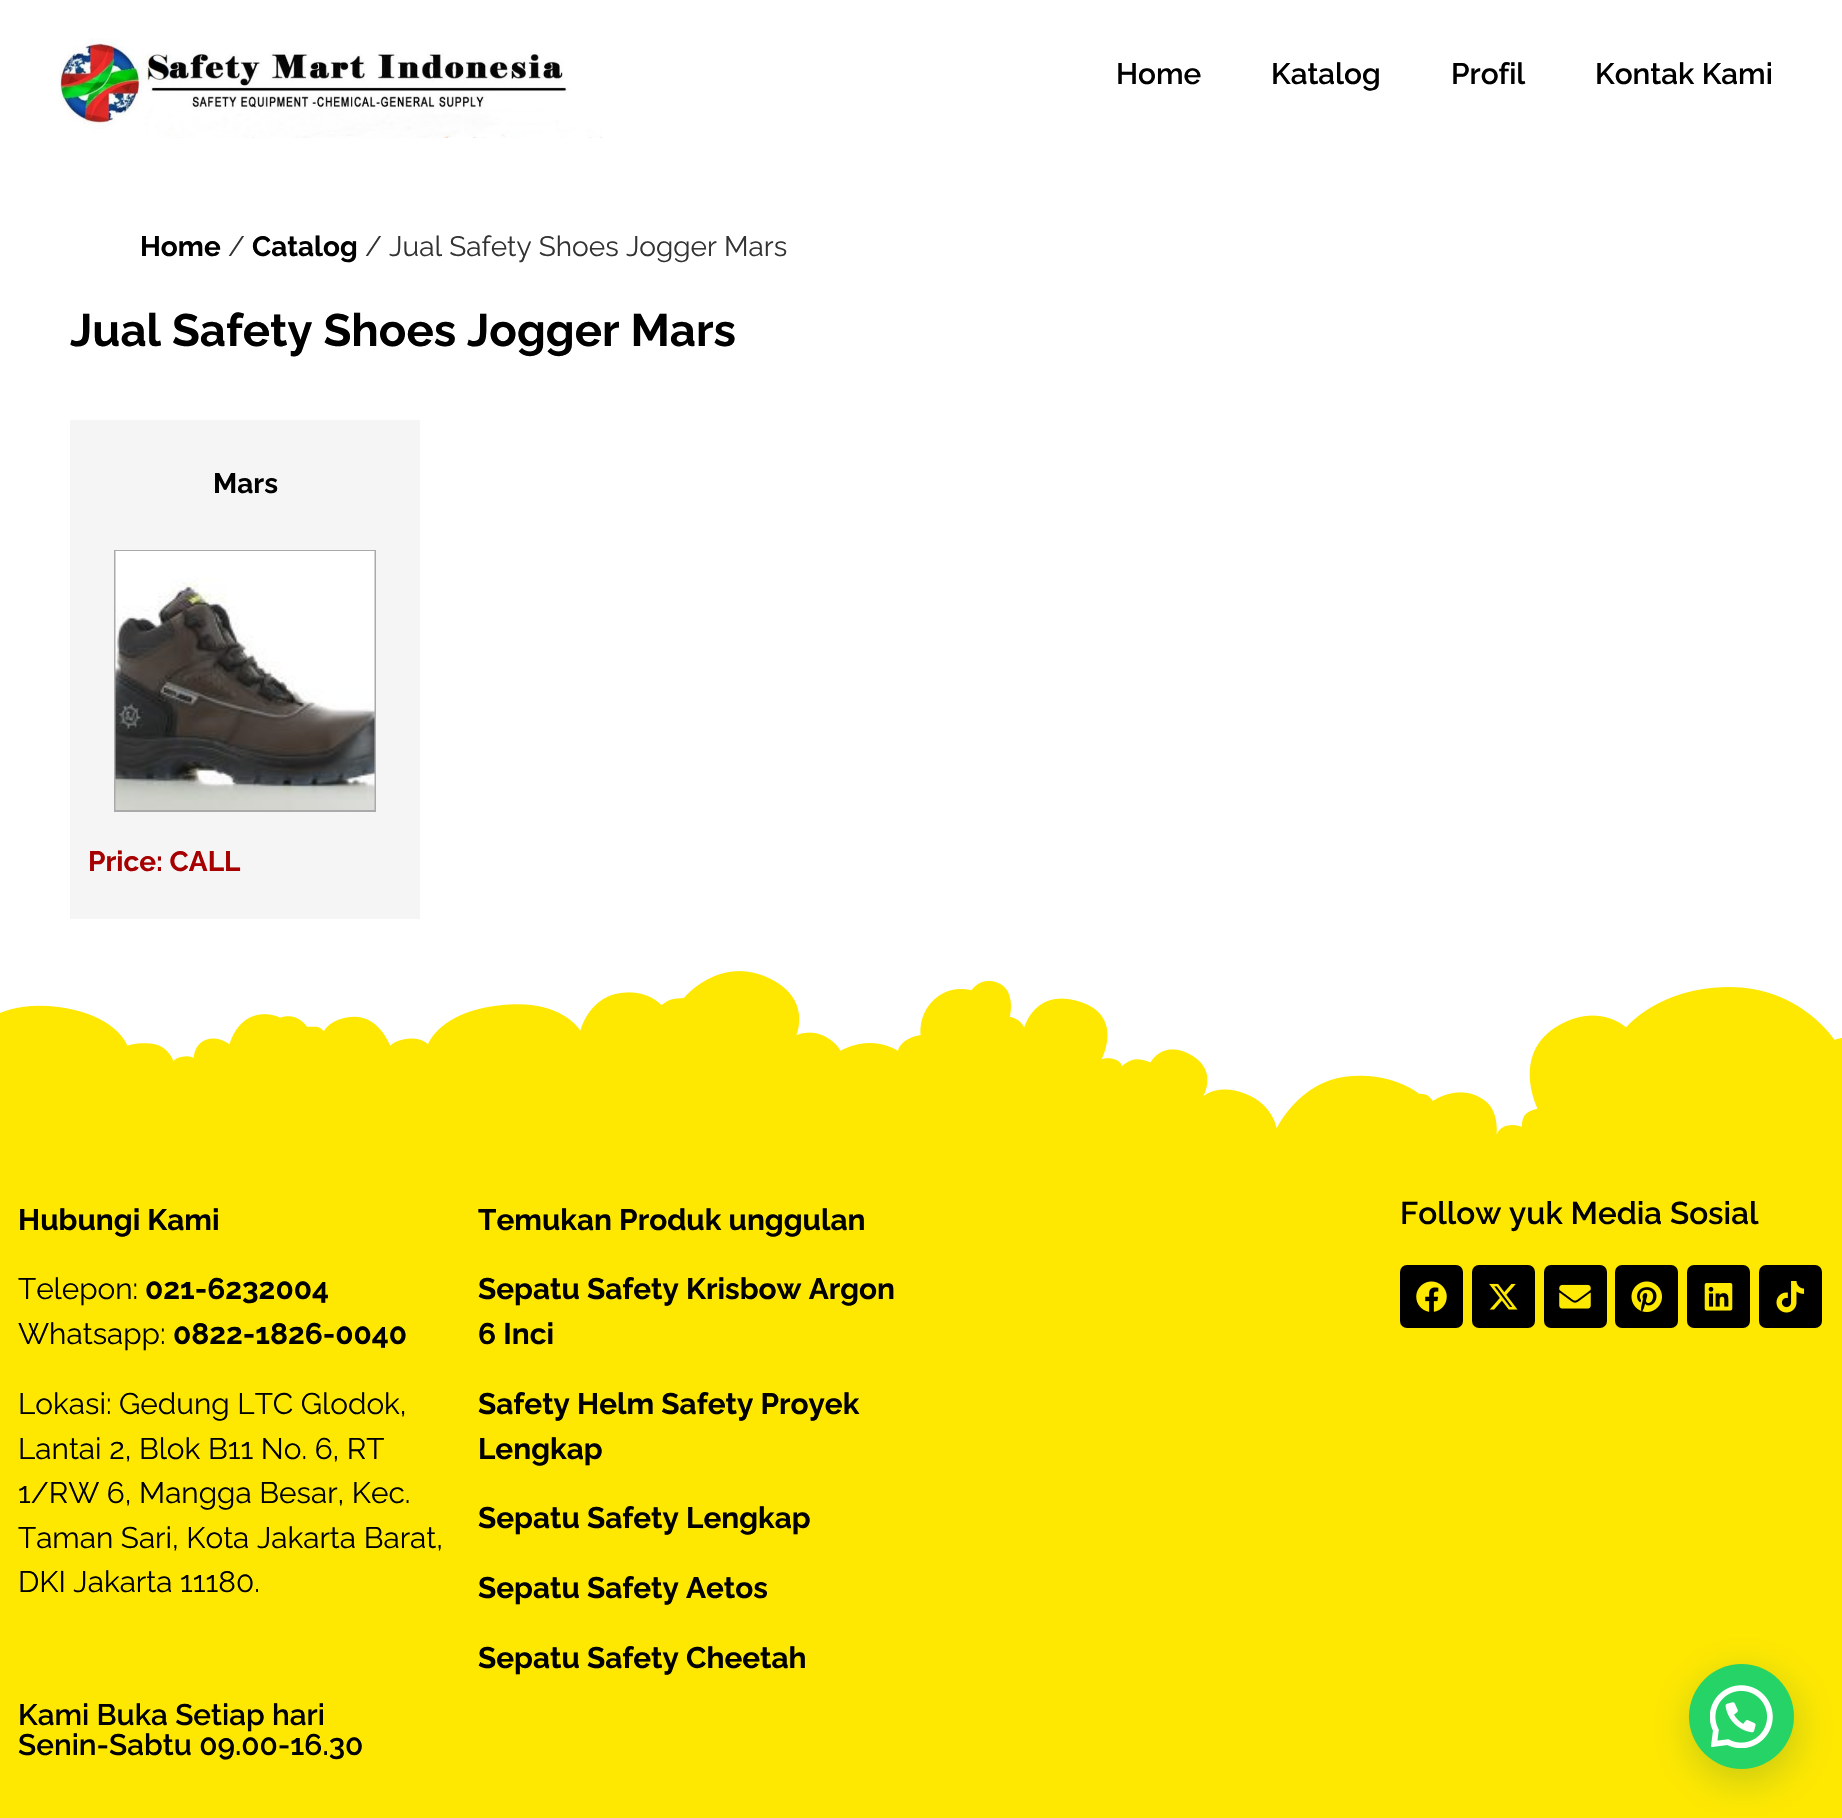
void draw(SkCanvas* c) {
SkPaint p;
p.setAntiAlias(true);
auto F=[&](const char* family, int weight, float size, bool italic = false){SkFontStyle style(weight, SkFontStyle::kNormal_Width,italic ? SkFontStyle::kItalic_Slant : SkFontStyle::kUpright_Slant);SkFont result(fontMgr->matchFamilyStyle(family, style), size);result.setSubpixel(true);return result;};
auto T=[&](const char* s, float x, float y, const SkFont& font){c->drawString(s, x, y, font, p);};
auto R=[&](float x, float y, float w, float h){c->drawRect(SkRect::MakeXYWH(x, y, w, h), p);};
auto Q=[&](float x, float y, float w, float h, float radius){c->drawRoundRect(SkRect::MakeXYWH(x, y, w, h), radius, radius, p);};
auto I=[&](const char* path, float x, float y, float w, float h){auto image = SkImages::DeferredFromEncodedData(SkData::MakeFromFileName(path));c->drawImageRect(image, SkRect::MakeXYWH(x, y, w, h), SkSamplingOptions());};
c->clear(0xffffffff);
I("1.png",59,38,543,100);
auto f1 = F("Raleway",600,29.75);
p.setColor(0xff000000);
T("Home",1116,84,f1);
T("Katalog",1271,84,f1);
T("Profil",1451,84,f1);
T("Kontak Kami",1595,84,f1);
auto f2 = F("Raleway",700,28);
T("Home",140,256,f2);
auto f3 = F("Raleway",400,28);
p.setColor(0xff333333);
T("/",228,256,f3);
p.setColor(0xff000000);
T("Catalog",252,256,f2);
p.setColor(0xff333333);
T("/ Jual Safety Shoes Jogger Mars",365,256,f3);
auto f4 = F("Raleway",700,45.5);
p.setColor(0xff000000);
T("Jual Safety Shoes Jogger Mars",70,346,f4);
p.setColor(0xfff5f5f5);
R(70,420,350,499);
p.setColor(0xff000000);
T("Mars",213,493,f2);
p.setStroke(true);
p.setStrokeWidth(2);
p.setColor(0xffaaaaaa);
c->drawRect(SkRect::MakeXYWH(115,551,260,260),p);
I("2.png",115,551,260,259);
p.setStroke(false);
p.setColor(0xffa60000);
T("Price: CALL",88,871,f2);
p.setColor(0xfffee801);
R(0,971,1842,847);
I("3.png",0,971,1842,164);
auto f5 = F("Raleway",700,29.75);
p.setColor(0xff000000);
T("Hubungi Kami",18,1230,f5);
auto f6 = F("Raleway",400,29.75);
T("Telepon:",18,1299,f6);
T("021-6232004",145,1299,f5);
T("Whatsapp:",18,1344,f6);
T("0822-1826-0040",173,1344,f5);
T("Lokasi: Gedung LTC Glodok,",18,1414,f6);
T("Lantai 2, Blok B11 No. 6, RT",18,1459,f6);
T("1/RW 6, Mangga Besar, Kec.",18,1503,f6);
T("Taman Sari, Kota Jakarta Barat,",18,1548,f6);
T("DKI Jakarta 11180.",18,1592,f6);
T("Kami Buka Setiap hari",18,1725,f1);
T("Senin-Sabtu 09.00-16.30",18,1755,f1);
T("Temukan Produk unggulan",478,1230,f5);
T("Sepatu Safety Krisbow Argon",478,1299,f5);
T("6 Inci",478,1344,f5);
T("Safety Helm Safety Proyek",478,1414,f5);
T("Lengkap",478,1459,f5);
T("Sepatu Safety Lengkap",478,1528,f5);
T("Sepatu Safety Aetos",478,1598,f5);
T("Sepatu Safety Cheetah",478,1668,f5);
auto f7 = F("Raleway",600,31.5);
T("Follow yuk Media Sosial",1400,1224,f7);
Q(1400,1265,63,63,7);
I("4.png",1416,1281,31,31);
Q(1472,1265,63,63,7);
I("5.png",1489,1283,29,27);
Q(1544,1265,63,63,7);
I("6.png",1559,1284,32,25);
Q(1615,1265,63,63,7);
I("7.png",1631,1281,31,31);
Q(1687,1265,63,63,7);
I("8.png",1704,1283,29,28);
Q(1759,1265,63,63,7);
I("9.png",1776,1281,29,32);
p.setColor(0x3d075e54);
p.setMaskFilter(SkMaskFilter::MakeBlur(kNormal_SkBlurStyle, 21));
c->drawRoundRect(SkRect::MakeXYWH(1691,1675,105,105),52.5,52.5,p);
p.setMaskFilter(nullptr);
p.setColor(0xff25d366);
c->drawCircle(1741.5,1716.5,52.5,p);
I("10.png",1710,1685,63,63);
}
